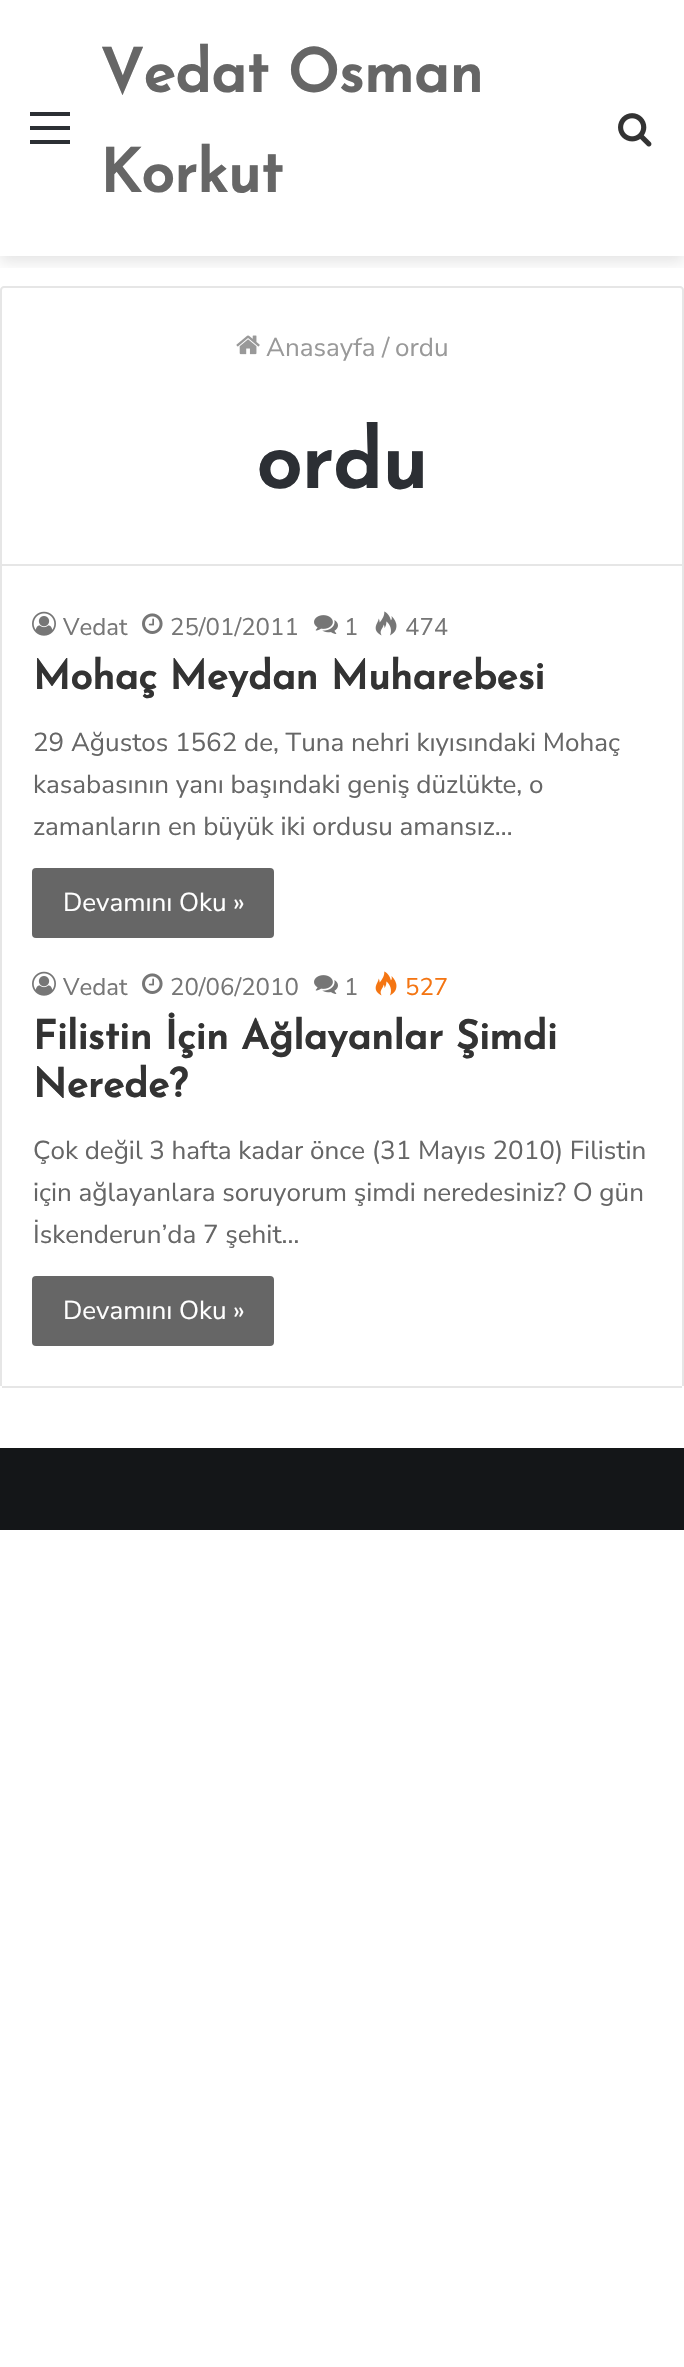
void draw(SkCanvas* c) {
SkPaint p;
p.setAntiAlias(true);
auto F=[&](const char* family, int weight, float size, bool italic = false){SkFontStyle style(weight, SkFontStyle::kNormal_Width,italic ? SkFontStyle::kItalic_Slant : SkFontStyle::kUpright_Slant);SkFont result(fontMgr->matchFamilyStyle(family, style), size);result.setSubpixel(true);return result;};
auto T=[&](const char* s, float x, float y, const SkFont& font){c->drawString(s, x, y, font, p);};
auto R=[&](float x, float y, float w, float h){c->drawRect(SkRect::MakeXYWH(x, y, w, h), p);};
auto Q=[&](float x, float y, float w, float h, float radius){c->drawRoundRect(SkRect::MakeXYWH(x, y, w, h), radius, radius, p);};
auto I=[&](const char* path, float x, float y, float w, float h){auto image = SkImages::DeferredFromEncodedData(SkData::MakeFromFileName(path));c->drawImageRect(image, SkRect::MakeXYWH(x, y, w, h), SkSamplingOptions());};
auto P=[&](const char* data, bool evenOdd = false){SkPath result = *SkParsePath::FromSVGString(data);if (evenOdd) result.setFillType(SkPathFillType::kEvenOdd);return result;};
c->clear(0xffffffff);
c->save();
c->clipRect(SkRect::MakeXYWH(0,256,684,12));
p.setColor(0x1a000000);
p.setMaskFilter(SkMaskFilter::MakeBlur(kNormal_SkBlurStyle, 7));
c->drawRect(SkRect::MakeXYWH(0,6,684,256),p);
p.setMaskFilter(nullptr);
c->restore();
p.setColor(0xff2c2f34);
R(30,126,40,4);
R(30,112,40,4);
R(30,140,40,4);
auto f1 = F("Josefin Sans",700,60);
p.setColor(0xff666666);
T("Vedat Osman",100,92,f1);
T("Korkut",100,192,f1);
I("1.png",618,113,34,34);
p.setStroke(true);
p.setStrokeWidth(2);
p.setColor(0xffe6e6e6);
c->drawPath(P("M4 287h676c1.5 0 3 1.5 3 3v275h-682v-275c0-1.5 1.5-3 3-3z"),p);
I("2.png",236,335,24,20);
auto f2 = F("Nunito Sans",400,26);
p.setStroke(false);
p.setColor(0xff999999);
T("Anasayfa",266,356,f2);
T("/",382,356,f2);
T("ordu",395,356,f2);
auto f3 = F("Josefin Sans",700,82);
p.setColor(0xff2c2f34);
T("ordu",256,488,f3);
p.setColor(0xffe6e6e6);
R(682,566,2,820);
R(2,1386,680,2);
R(0,566,2,820);
I("3.png",32,611,24,25);
auto f4 = F("Nunito Sans",400,24);
p.setColor(0xff767676);
T("Vedat",63,635,f4);
I("4.png",142,613,21,21);
T("25/01/2011",170,635,f4);
I("5.png",314,615,24,19);
T("1",344,635,f4);
I("6.png",375,611,22,25);
T("474",405,635,f4);
auto f5 = F("Josefin Sans",700,40);
p.setColor(0xff333333);
T("Mohaç Meydan Muharebesi",33,689,f5);
p.setColor(0xff666666);
T("29 Ağustos 1562 de, Tuna nehri kıyısındaki Mohaç",33,751,f2);
T("kasabasının yanı başındaki geniş düzlükte, o",33,793,f2);
T("zamanların en büyük iki ordusu amansız…",33,835,f2);
Q(32,868,242,70,4);
p.setColor(0xffffffff);
T("Devamını Oku »",63,911,f2);
I("3.png",32,971,24,25);
p.setColor(0xff767676);
T("Vedat",63,995,f4);
I("4.png",142,973,21,21);
T("20/06/2010",170,995,f4);
I("5.png",314,975,24,19);
T("1",344,995,f4);
I("7.png",375,971,22,25);
p.setColor(0xfff47512);
T("527",405,995,f4);
p.setColor(0xff333333);
T("Filistin İçin Ağlayanlar Şimdi",33,1049,f5);
T("Nerede?",33,1097,f5);
p.setColor(0xff666666);
T("Çok değil 3 hafta kadar önce (31 Mayıs 2010) Filistin",33,1159,f2);
T("için ağlayanlara soruyorum şimdi neredesiniz? O gün",33,1201,f2);
T("İskenderun’da 7 şehit…",33,1243,f2);
Q(32,1276,242,70,4);
p.setColor(0xffffffff);
T("Devamını Oku »",63,1319,f2);
p.setColor(0xff141618);
R(0,1448,684,82);
}
